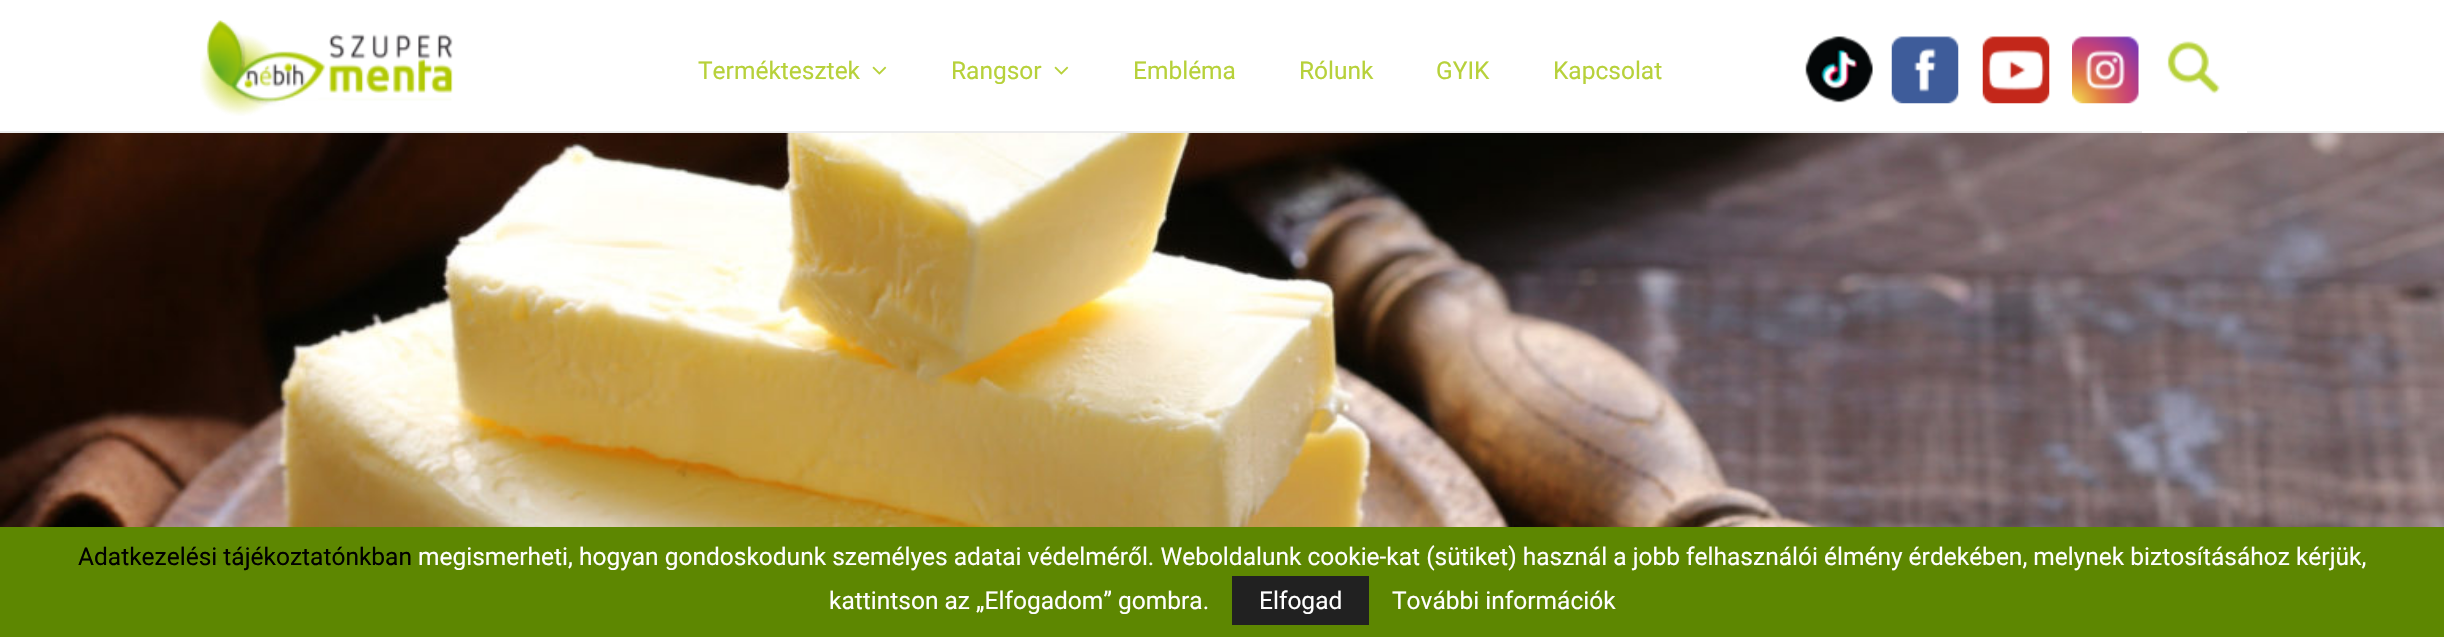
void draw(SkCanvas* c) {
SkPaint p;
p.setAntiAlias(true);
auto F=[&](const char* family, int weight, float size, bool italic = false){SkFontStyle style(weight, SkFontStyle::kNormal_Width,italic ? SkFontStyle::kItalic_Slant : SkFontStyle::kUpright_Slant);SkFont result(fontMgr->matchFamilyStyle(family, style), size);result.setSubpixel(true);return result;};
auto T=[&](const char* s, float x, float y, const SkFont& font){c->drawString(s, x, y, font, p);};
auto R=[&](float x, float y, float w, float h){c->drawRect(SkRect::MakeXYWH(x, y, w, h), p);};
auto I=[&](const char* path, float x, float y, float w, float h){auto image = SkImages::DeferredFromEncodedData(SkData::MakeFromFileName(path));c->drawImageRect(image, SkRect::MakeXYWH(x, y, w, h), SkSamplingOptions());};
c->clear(0xffffffff);
p.setColor(0xffececec);
R(0,131,2444,2);
I("1.png",200,20,253,96);
auto f1 = F("Roboto",400,24.5);
p.setColor(0xffb7d13a);
T("Terméktesztek",698,79,f1);
I("2.png",872,66,15,9);
T("Rangsor",951,79,f1);
I("2.png",1054,66,15,9);
T("Embléma",1133,79,f1);
T("Rólunk",1299,79,f1);
T("GYIK",1436,79,f1);
T("Kapcsolat",1553,79,f1);
I("3.png",1805,36,68,67);
I("4.png",1891,36,68,68);
I("5.png",1982,36,68,68);
I("6.png",2072,36,67,68);
p.setColor(0xffffffff);
R(2142,131,105,2);
I("7.png",2167,41,53,53);
I("8.png",0,133,2444,394);
p.setColor(0xff5d8701);
R(0,527,2444,110);
p.setColor(0xff000000);
T("Adatkezelési tájékoztatónkban",78,565,f1);
p.setColor(0xffffffff);
T("megismerheti, hogyan gondoskodunk személyes adatai védelméről. Weboldalunk cookie-kat (sütiket) használ a jobb felhasználói élmény érdekében, melynek biztosításához kérjük,",418,565,f1);
T("kattintson az „Elfogadom” gombra.",829,609,f1);
p.setColor(0xff212121);
R(1232,576,137,49);
p.setColor(0xffffffff);
T("Elfogad",1259,609,f1);
T("További információk",1392,609,f1);
}
